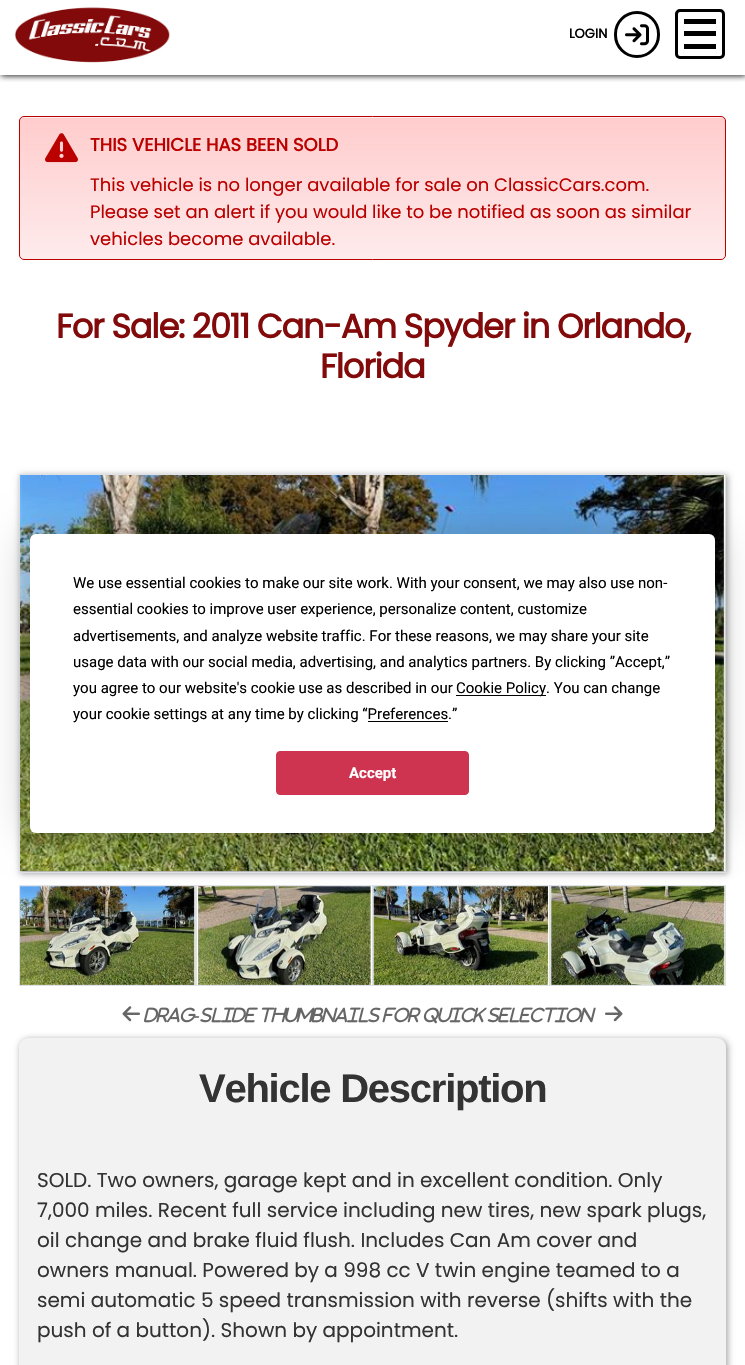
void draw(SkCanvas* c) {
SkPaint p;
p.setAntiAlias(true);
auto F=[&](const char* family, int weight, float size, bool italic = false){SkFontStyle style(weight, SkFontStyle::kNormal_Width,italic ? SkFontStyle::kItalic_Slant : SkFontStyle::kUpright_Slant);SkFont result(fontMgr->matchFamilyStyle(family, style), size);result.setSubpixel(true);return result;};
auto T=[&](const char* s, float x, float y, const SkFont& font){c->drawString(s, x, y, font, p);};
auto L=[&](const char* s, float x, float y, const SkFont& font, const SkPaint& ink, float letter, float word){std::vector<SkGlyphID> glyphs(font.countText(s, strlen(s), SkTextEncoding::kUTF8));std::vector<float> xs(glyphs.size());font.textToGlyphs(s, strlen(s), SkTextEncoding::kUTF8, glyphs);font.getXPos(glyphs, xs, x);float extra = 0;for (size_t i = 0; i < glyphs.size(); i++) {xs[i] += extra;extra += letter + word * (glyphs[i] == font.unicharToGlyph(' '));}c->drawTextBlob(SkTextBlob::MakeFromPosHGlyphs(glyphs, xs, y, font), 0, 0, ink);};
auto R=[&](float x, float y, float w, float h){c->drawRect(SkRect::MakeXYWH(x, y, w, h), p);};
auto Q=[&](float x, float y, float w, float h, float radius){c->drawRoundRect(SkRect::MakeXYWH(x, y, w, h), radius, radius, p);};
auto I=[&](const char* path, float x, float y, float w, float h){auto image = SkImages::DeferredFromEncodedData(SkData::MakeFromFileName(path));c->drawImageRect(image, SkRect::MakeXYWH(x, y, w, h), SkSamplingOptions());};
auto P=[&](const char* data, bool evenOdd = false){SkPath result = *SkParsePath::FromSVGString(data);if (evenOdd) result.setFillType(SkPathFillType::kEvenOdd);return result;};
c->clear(0xffffffff);
c->save();
c->clipRect(SkRect::MakeXYWH(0,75,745,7));
p.setColor(0xff282828);
p.setMaskFilter(SkMaskFilter::MakeBlur(kNormal_SkBlurStyle, 3));
c->drawRect(SkRect::MakeXYWH(1,-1,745,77),p);
p.setMaskFilter(nullptr);
c->restore();
I("1.png",14,7,156,56);
auto f1 = F("Poppins",700,13);
p.setColor(0xff000000);
T("LOGIN",569,38,f1);
p.setStroke(true);
p.setStrokeWidth(3);
c->drawRoundRect(SkRect::MakeXYWH(615.5,12.5,43,44),21.5,21.5,p);
I("2.png",625,24,24,22);
c->drawRoundRect(SkRect::MakeXYWH(676.5,10.5,47,47),3.5,3.5,p);
p.setStroke(false);
R(684,19,32,5);
R(684,31,32,5);
R(684,44,32,5);
c->save();
c->clipPath(P("M24 116h697c3 0 5 2 5 5v134c0 3-2 5-5 5h-697c-3 0-5-2-5-5v-134c0-3 2-5 5-5z"),true);
{
const SkColor colors[] = {0xffffcccc,0xfffeebec};
const float stops[] = {0,1};
const SkPoint ends[] = {{373,-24}, {373,118}};
p.setShader(SkGradientShader::MakeLinear(ends, colors, stops, 2, SkTileMode::kClamp));
p.setAlpha(255);
}
R(19,116,707,2);
{
const SkColor colors[] = {0xffffcccc,0xfffeebec};
const float stops[] = {0,1};
const SkPoint ends[] = {{373,117}, {373,259}};
p.setShader(SkGradientShader::MakeLinear(ends, colors, stops, 2, SkTileMode::kClamp));
p.setAlpha(255);
}
R(19,118,707,141);
c->restore();
p.setStroke(true);
p.setStrokeWidth(1);
p.setShader(nullptr);
p.setColor(0xffbb0000);
c->drawRoundRect(SkRect::MakeXYWH(19.5,116.5,706,143),4.5,4.5,p);
I("3.png",45,133,33,30);
auto f2 = F("Poppins",700,18);
p.setStroke(false);
T("THIS VEHICLE HAS BEEN SOLD",90,151,f2);
auto f3 = F("Poppins",400,18);
T("This vehicle is no longer available for sale on ClassicCars.com.",90,191,f3);
T("Please set an alert if you would like to be notified as soon as similar",90,218,f3);
T("vehicles become available.",90,245,f3);
auto f4 = F("Poppins",700,33.75);
p.setColor(0xff830a0b);
L("For Sale: 2011 Can-Am Spyder in Orlando,",56,338,f4,p,-1.25,0);
L("Florida",320,378,f4,p,-1.25,0);
p.setColor(0xffa9a9a9);
p.setMaskFilter(SkMaskFilter::MakeBlur(kNormal_SkBlurStyle, 3));
c->drawRect(SkRect::MakeXYWH(20,475,708,399),p);
p.setMaskFilter(nullptr);
p.setStroke(true);
p.setColor(0xffdee2e6);
c->drawRect(SkRect::MakeXYWH(19.5,474.5,706,398),p);
I("4.png",20,475,705,397);
c->drawRect(SkRect::MakeXYWH(19.5,885.5,176,100),p);
I("5.png",20,886,175,99);
c->drawRect(SkRect::MakeXYWH(196.5,885.5,176,100),p);
I("6.png",197,886,175,99);
c->drawRect(SkRect::MakeXYWH(373.5,885.5,176,100),p);
I("7.png",373,886,176,99);
c->drawRect(SkRect::MakeXYWH(550.5,885.5,175,100),p);
I("8.png",551,886,174,99);
I("9.png",122,1006,18,16);
I("10.png",144,1007,52,16);
auto f5 = F("Liberation Serif",700,17,true);
p.setStroke(false);
p.setColor(0xff666666);
T("-",194,1021,f5);
I("11.png",200,1007,58,16);
I("12.png",261,1007,120,16);
I("13.png",382,1007,39,16);
I("14.png",423,1007,64,17);
I("15.png",487,1007,109,16);
I("16.png",605,1006,18,16);
p.setColor(0xffa9a9a9);
p.setMaskFilter(SkMaskFilter::MakeBlur(kNormal_SkBlurStyle, 3));
c->drawRoundRect(SkRect::MakeXYWH(20,1039,708,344),9,9,p);
p.setMaskFilter(nullptr);
p.setColor(0xfff2f2f2);
Q(19,1038,707,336,9);
auto f6 = F("Liberation Sans",700,40);
p.setColor(0xff333333);
L("Vehicle Description",199,1102,f6,p,-1.25,0);
auto f7 = F("Poppins",400,20);
T("SOLD. Two owners, garage kept and in excellent condition. Only",37,1187,f7);
T("7,000 miles. Recent full service including new tires, new spark plugs,",37,1217,f7);
T("oil change and brake fluid flush. Includes Can Am cover and",37,1247,f7);
T("owners manual. Powered by a 998 cc V twin engine teamed to a",37,1277,f7);
T("semi automatic 5 speed transmission with reverse (shifts with the",37,1307,f7);
T("push of a button). Shown by appointment.",37,1337,f7);
p.setColor(0x40000000);
p.setMaskFilter(SkMaskFilter::MakeBlur(kNormal_SkBlurStyle, 22));
c->drawRoundRect(SkRect::MakeXYWH(30,534,685,299),6,6,p);
p.setMaskFilter(nullptr);
p.setColor(0xffffffff);
Q(30,534,685,299,6);
auto f8 = F("Roboto",400,15);
p.setColor(0xff000000);
T("We use essential cookies to make our site work. With your consent, we may also use non-",73,588,f8);
T("essential cookies to improve user experience, personalize content, customize",73,614,f8);
T("advertisements, and analyze website traffic. For these reasons, we may share your site",73,641,f8);
T("usage data with our social media, advertising, and analytics partners. By clicking ”Accept,”",73,667,f8);
T("you agree to our website's cookie use as described in our",73,693,f8);
R(456,695,90,1);
T("Cookie Policy",456,693,f8);
T(". You can change",546,693,f8);
T("your cookie settings at any time by clicking “Preferences",73,719,f8);
T(".”",448,719,f8);
R(368,721,80,1);
p.setColor(0xffce334f);
c->drawRoundRect(SkRect::MakeXYWH(276.5,751.5,192,43),3.5,3.5,p);
p.setStroke(true);
c->drawRoundRect(SkRect::MakeXYWH(276.5,751.5,192,43),3.5,3.5,p);
auto f9 = F("Roboto",700,15);
p.setStroke(false);
p.setColor(0xffffffff);
T("Accept",349,778,f9);
}
